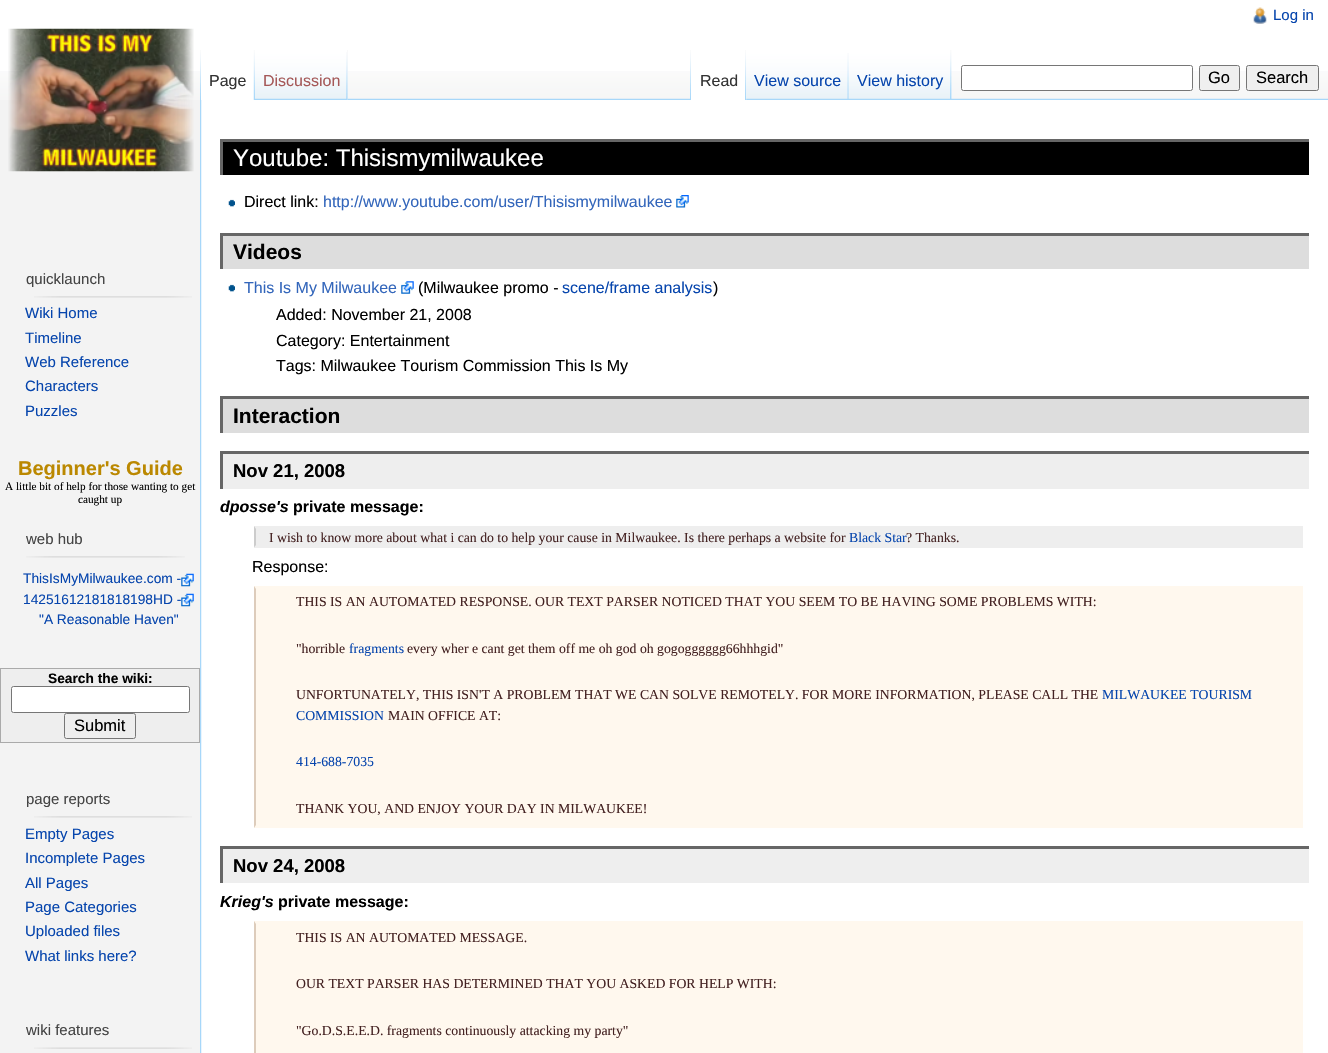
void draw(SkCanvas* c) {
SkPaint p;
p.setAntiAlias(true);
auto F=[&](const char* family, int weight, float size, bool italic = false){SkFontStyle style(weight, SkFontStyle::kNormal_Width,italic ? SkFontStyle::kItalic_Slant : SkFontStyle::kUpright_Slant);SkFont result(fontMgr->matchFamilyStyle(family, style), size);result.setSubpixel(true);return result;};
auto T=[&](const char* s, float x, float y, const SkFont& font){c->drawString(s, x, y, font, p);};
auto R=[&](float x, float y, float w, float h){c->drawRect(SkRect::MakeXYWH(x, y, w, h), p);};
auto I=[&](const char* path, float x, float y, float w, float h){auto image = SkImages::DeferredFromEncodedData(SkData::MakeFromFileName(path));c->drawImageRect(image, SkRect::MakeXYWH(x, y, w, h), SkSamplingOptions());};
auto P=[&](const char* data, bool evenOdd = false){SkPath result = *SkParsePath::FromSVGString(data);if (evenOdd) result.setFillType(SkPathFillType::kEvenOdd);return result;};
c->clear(0xfff3f3f3);
p.setColor(0xffffffff);
R(0,0,1328,71);
I("1.png",0,71,1328,29);
I("2.png",1253,7,14,17);
auto f1 = F("Liberation Sans",400,15);
p.setColor(0xff0645ad);
T("Log in",1273,20,f1);
I("13.png",200,98,1128,2);
I("3.png",200,50,1,49);
p.setColor(0xffffffff);
R(201,71,53,29);
I("4.png",253,50,2,50);
auto f2 = F("Liberation Sans",400,16);
p.setColor(0xff333333);
T("Page",209,86,f2);
p.setColor(0xfff3f3f3);
R(347,50,1,50);
I("5.png",255,50,93,50);
I("6.png",346,52,2,48);
p.setColor(0xffa55858);
T("Discussion",263,86,f2);
I("3.png",690,50,1,49);
I("7.png",951,50,1,49);
p.setColor(0xffffffff);
R(691,71,56,29);
I("8.png",745,50,2,50);
p.setColor(0xff333333);
T("Read",700,86,f2);
I("9.png",746,50,103,50);
I("10.png",847,53,2,47);
p.setColor(0xff0645ad);
T("View source",754,86,f2);
I("11.png",848,50,103,50);
I("12.png",950,50,2,49);
T("View history",857,86,f2);
p.setColor(0xffffffff);
c->drawRoundRect(SkRect::MakeXYWH(961.5,65.5,231,25),2,2,p);
p.setStroke(true);
p.setStrokeWidth(1);
p.setColor(0xff767676);
c->drawRoundRect(SkRect::MakeXYWH(961.5,65.5,231,25),2,2,p);
p.setStroke(false);
p.setColor(0xffefefef);
c->drawRoundRect(SkRect::MakeXYWH(1199.5,65.5,40,25),2,2,p);
p.setStroke(true);
p.setColor(0xff767676);
c->drawRoundRect(SkRect::MakeXYWH(1199.5,65.5,40,25),2,2,p);
auto f3 = F("Liberation Sans",400,16.5);
p.setStroke(false);
p.setColor(0xff000000);
T("Go",1208,83,f3);
p.setColor(0xffefefef);
c->drawRoundRect(SkRect::MakeXYWH(1246.5,65.5,72,25),2,2,p);
p.setStroke(true);
p.setColor(0xff767676);
c->drawRoundRect(SkRect::MakeXYWH(1246.5,65.5,72,25),2,2,p);
p.setStroke(false);
p.setColor(0xff000000);
T("Search",1256,83,f3);
I("14.png",8,28,186,144);
p.setColor(0xff444444);
T("quicklaunch",26,284,f1);
I("15.png",34,296,158,2);
p.setColor(0xff0645ad);
T("Wiki Home",25,318,f1);
T("Timeline",25,343,f1);
T("Web Reference",25,367,f1);
T("Characters",25,391,f1);
T("Puzzles",25,416,f1);
auto f4 = F("Liberation Sans",700,20);
p.setColor(0xffbb8800);
T("Beginner's Guide",18,475,f4);
auto f5 = F("Liberation Serif",400,11.25);
p.setColor(0xff000000);
T("A little bit of help for those wanting to get",5,490,f5);
T("caught up",78,503,f5);
p.setColor(0xff444444);
T("web hub",26,544,f1);
I("16.png",26,556,159,2);
auto f6 = F("Liberation Sans",400,13.75);
p.setColor(0xff0645ad);
T("ThisIsMyMilwaukee.com -",23,583,f6);
I("17.png",181,573,13,14);
T("14251612181818198HD -",23,604,f6);
I("17.png",181,593,13,14);
T("\"A Reasonable Haven\"",39,624,f6);
p.setColor(0xffeeeeee);
c->drawRect(SkRect::MakeXYWH(.5,668.5,199,74),p);
p.setStroke(true);
p.setColor(0xffaaaaaa);
c->drawRect(SkRect::MakeXYWH(.5,668.5,199,74),p);
auto f7 = F("Liberation Sans",700,13.75);
p.setStroke(false);
p.setColor(0xff000000);
T("Search the wiki:",48,683,f7);
p.setColor(0xffffffff);
c->drawRoundRect(SkRect::MakeXYWH(11.5,686.5,178,26),2,2,p);
p.setStroke(true);
p.setColor(0xff767676);
c->drawRoundRect(SkRect::MakeXYWH(11.5,686.5,178,26),2,2,p);
c->drawRoundRect(SkRect::MakeXYWH(64.5,713.5,71,25),2,2,p);
p.setStroke(false);
p.setColor(0xff000000);
T("Submit",74,731,f3);
p.setColor(0xff444444);
T("page reports",26,804,f1);
I("15.png",34,816,158,2);
p.setColor(0xff0645ad);
T("Empty Pages",25,839,f1);
T("Incomplete Pages",25,863,f1);
T("All Pages",25,888,f1);
T("Page Categories",25,912,f1);
T("Uploaded files",25,936,f1);
T("What links here?",25,961,f1);
p.setColor(0xff444444);
T("wiki features",26,1035,f1);
I("18.png",34,1047,158,2);
p.setColor(0xffffffff);
R(201,100,1127,953);
I("19.png",200,100,2,953);
p.setColor(0xff000000);
R(223,142,1086,33);
p.setColor(0xff666666);
R(220,139,1089,3);
R(220,139,3,36);
auto f8 = F("Liberation Sans",400,24);
p.setColor(0xffffffff);
T("Youtube: Thisismymilwaukee",233,166,f8);
I("20.png",228,199,7,8);
p.setColor(0xff000000);
T("Direct link:",244,207,f2);
p.setColor(0xff3366bb);
T("http://www.youtube.com/user/Thisismymilwaukee",323,207,f2);
I("21.png",676,195,13,13);
p.setColor(0xffdddddd);
R(223,236,1086,33);
p.setColor(0xff666666);
R(220,233,1089,3);
R(220,233,3,36);
auto f9 = F("Liberation Sans",700,21);
p.setColor(0xff000000);
T("Videos",233,259,f9);
I("20.png",228,284,7,8);
p.setColor(0xff3366bb);
T("This Is My Milwaukee",244,293,f2);
I("22.png",401,281,13,13);
p.setColor(0xff000000);
T("(Milwaukee promo -",418,293,f2);
p.setColor(0xff0645ad);
T("scene/frame analysis",562,293,f2);
p.setColor(0xff000000);
T(")",713,293,f2);
T("Added: November 21, 2008",276,320,f2);
T("Category: Entertainment",276,346,f2);
T("Tags: Milwaukee Tourism Commission This Is My",276,371,f2);
p.setColor(0xffdddddd);
R(223,399,1086,34);
p.setColor(0xff666666);
R(220,396,1089,3);
R(220,396,3,37);
p.setColor(0xff000000);
T("Interaction",233,423,f9);
p.setColor(0xffeeeeee);
R(223,454,1086,35);
p.setColor(0xff666666);
R(220,451,1089,3);
R(220,451,3,38);
auto f10 = F("Liberation Sans",700,18.5);
p.setColor(0xff000000);
T("Nov 21, 2008",233,477,f10);
auto f11 = F("Liberation Sans",700,16,true);
T("dposse's",220,512,f11);
auto f12 = F("Liberation Sans",700,16);
T("private message:",293,512,f12);
p.setColor(0xffeeeeee);
R(254,526,1049,22);
p.setColor(0xffcccccc);
c->drawPath(P("M254 547.5v-21.5l2 3v16z"),p);
auto f13 = F("Liberation Serif",400,13.75);
p.setColor(0xff442222);
T("I wish to know more about what i can do to help your cause in Milwaukee. Is there perhaps a website for",269,542,f13);
p.setColor(0xff0645ad);
T("Black Star",849,542,f13);
p.setColor(0xff442222);
T("? Thanks.",906,542,f13);
p.setColor(0xff000000);
T("Response:",252,572,f2);
p.setColor(0xfffff8ee);
R(254,586,1049,242);
p.setColor(0xffddccbb);
c->drawPath(P("M254 828v-242l2 3v236z"),p);
p.setColor(0xff442222);
T("THIS IS AN AUTOMATED RESPONSE. OUR TEXT PARSER NOTICED THAT YOU SEEM TO BE HAVING SOME PROBLEMS WITH:",296,606,f13);
T("\"horrible",296,653,f13);
p.setColor(0xff0645ad);
T("fragments",349,653,f13);
p.setColor(0xff442222);
T("every wher e cant get them off me oh god oh gogogggggg66hhhgid\"",407,653,f13);
T("UNFORTUNATELY, THIS ISN'T A PROBLEM THAT WE CAN SOLVE REMOTELY. FOR MORE INFORMATION, PLEASE CALL THE",296,699,f13);
p.setColor(0xff0645ad);
T("MILWAUKEE TOURISM",1102,699,f13);
T("COMMISSION",296,720,f13);
p.setColor(0xff442222);
T("MAIN OFFICE AT:",388,720,f13);
p.setColor(0xff0645ad);
T("414-688-7035",296,766,f13);
p.setColor(0xff442222);
T("THANK YOU, AND ENJOY YOUR DAY IN MILWAUKEE!",296,813,f13);
p.setColor(0xffeeeeee);
R(223,849,1086,34);
p.setColor(0xff666666);
R(220,846,1089,3);
R(220,846,3,37);
p.setColor(0xff000000);
T("Nov 24, 2008",233,872,f10);
T("Krieg's",220,907,f11);
T("private message:",278,907,f12);
p.setColor(0xfffff8ee);
R(254,921,1049,132);
p.setColor(0xffddccbb);
c->drawPath(P("M254 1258v-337l2 3v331z"),p);
p.setColor(0xff442222);
T("THIS IS AN AUTOMATED MESSAGE.",296,942,f13);
T("OUR TEXT PARSER HAS DETERMINED THAT YOU ASKED FOR HELP WITH:",296,988,f13);
T("\"Go.D.S.E.E.D. fragments continuously attacking my party\"",296,1035,f13);
}
